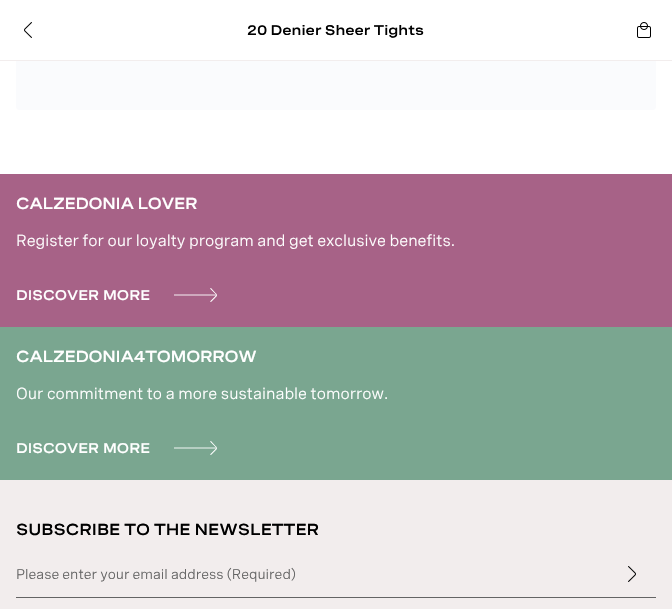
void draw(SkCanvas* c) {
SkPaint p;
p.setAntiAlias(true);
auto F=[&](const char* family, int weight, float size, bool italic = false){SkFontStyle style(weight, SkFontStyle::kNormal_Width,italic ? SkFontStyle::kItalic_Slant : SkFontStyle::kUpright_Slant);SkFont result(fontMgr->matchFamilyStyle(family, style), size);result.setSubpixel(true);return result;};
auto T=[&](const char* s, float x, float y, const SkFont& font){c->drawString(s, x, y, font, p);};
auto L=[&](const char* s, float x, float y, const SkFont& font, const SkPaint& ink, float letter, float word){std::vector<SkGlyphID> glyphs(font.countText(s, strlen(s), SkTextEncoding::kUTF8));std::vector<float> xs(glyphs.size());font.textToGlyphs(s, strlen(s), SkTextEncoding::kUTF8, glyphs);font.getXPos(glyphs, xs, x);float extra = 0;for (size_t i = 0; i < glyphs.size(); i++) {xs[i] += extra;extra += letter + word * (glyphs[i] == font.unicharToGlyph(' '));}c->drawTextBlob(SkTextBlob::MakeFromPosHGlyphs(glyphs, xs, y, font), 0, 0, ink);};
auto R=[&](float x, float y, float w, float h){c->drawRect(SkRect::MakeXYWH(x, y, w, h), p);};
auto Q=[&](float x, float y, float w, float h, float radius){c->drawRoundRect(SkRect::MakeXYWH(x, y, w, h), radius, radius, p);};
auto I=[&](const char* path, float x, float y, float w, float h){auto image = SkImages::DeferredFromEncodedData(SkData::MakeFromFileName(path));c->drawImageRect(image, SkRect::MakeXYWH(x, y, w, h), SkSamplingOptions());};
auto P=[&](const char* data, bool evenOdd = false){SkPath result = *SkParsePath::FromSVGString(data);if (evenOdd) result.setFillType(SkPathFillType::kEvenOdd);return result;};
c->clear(0xffffffff);
p.setColor(0xfffafbfd);
Q(16,-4,640,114,4);
p.setColor(0xffffffff);
R(16,0,640,60);
p.setColor(0xfff2eded);
R(0,60,672,1);
I("1.png",24,22,8,16);
auto f1 = F("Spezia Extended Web",600,14);
p.setColor(0xff000000);
L("20 Denier Sheer Tights",247,35,f1,p,0,-.5);
I("2.png",637,22,14,16);
p.setColor(0xffa76287);
R(0,174,672,153);
auto f2 = F("Spezia Extended Web",600,16);
p.setColor(0xffffffff);
L("CALZEDONIA LOVER",16,209,f2,p,-.3,-.5);
auto f3 = F("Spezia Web",400,16);
L("Register for our loyalty program and get exclusive benefits.",16,246,f3,p,0,-.5);
T("DISCOVER MORE",16,300,f1);
p.setStroke(true);
p.setStrokeWidth(.9);
c->drawPath(P("M216 295h-42"),p);
p.setStroke(false);
c->drawPath(P("M210.5 301c-.5 .5 0 1 .5 1l3-3c2.5-2.5 4.5-3.5 1.5-6l-4.5-5l-1 .5l5 5c1.5 1.5 1.5 1.5 0 3z"),p);
p.setColor(0xff7aa690);
R(0,327,672,153);
p.setColor(0xffffffff);
L("CALZEDONIA4TOMORROW",16,362,f2,p,-.3,0);
L("Our commitment to a more sustainable tomorrow.",16,399,f3,p,0,-.5);
T("DISCOVER MORE",16,453,f1);
p.setStroke(true);
c->drawPath(P("M216 448h-42"),p);
p.setStroke(false);
c->drawPath(P("M210.5 454c-.5 .5 0 1 .5 1l3-3c2.5-2.5 4.5-3.5 1.5-6l-4.5-5l-1 .5l5 5c1.5 1.5 1.5 1.5 0 3z"),p);
p.setColor(0xfff2eded);
R(0,480,672,129);
p.setColor(0xff000000);
L("SUBSCRIBE TO THE NEWSLETTER",16,535,f2,p,0,-.5);
I("3.png",628,566,8,16);
p.setColor(0xff646464);
R(16,597,640,1);
auto f4 = F("Spezia Web",400,14);
L("Please enter your email address (Required)",16,579,f4,p,0,-.5);
}
